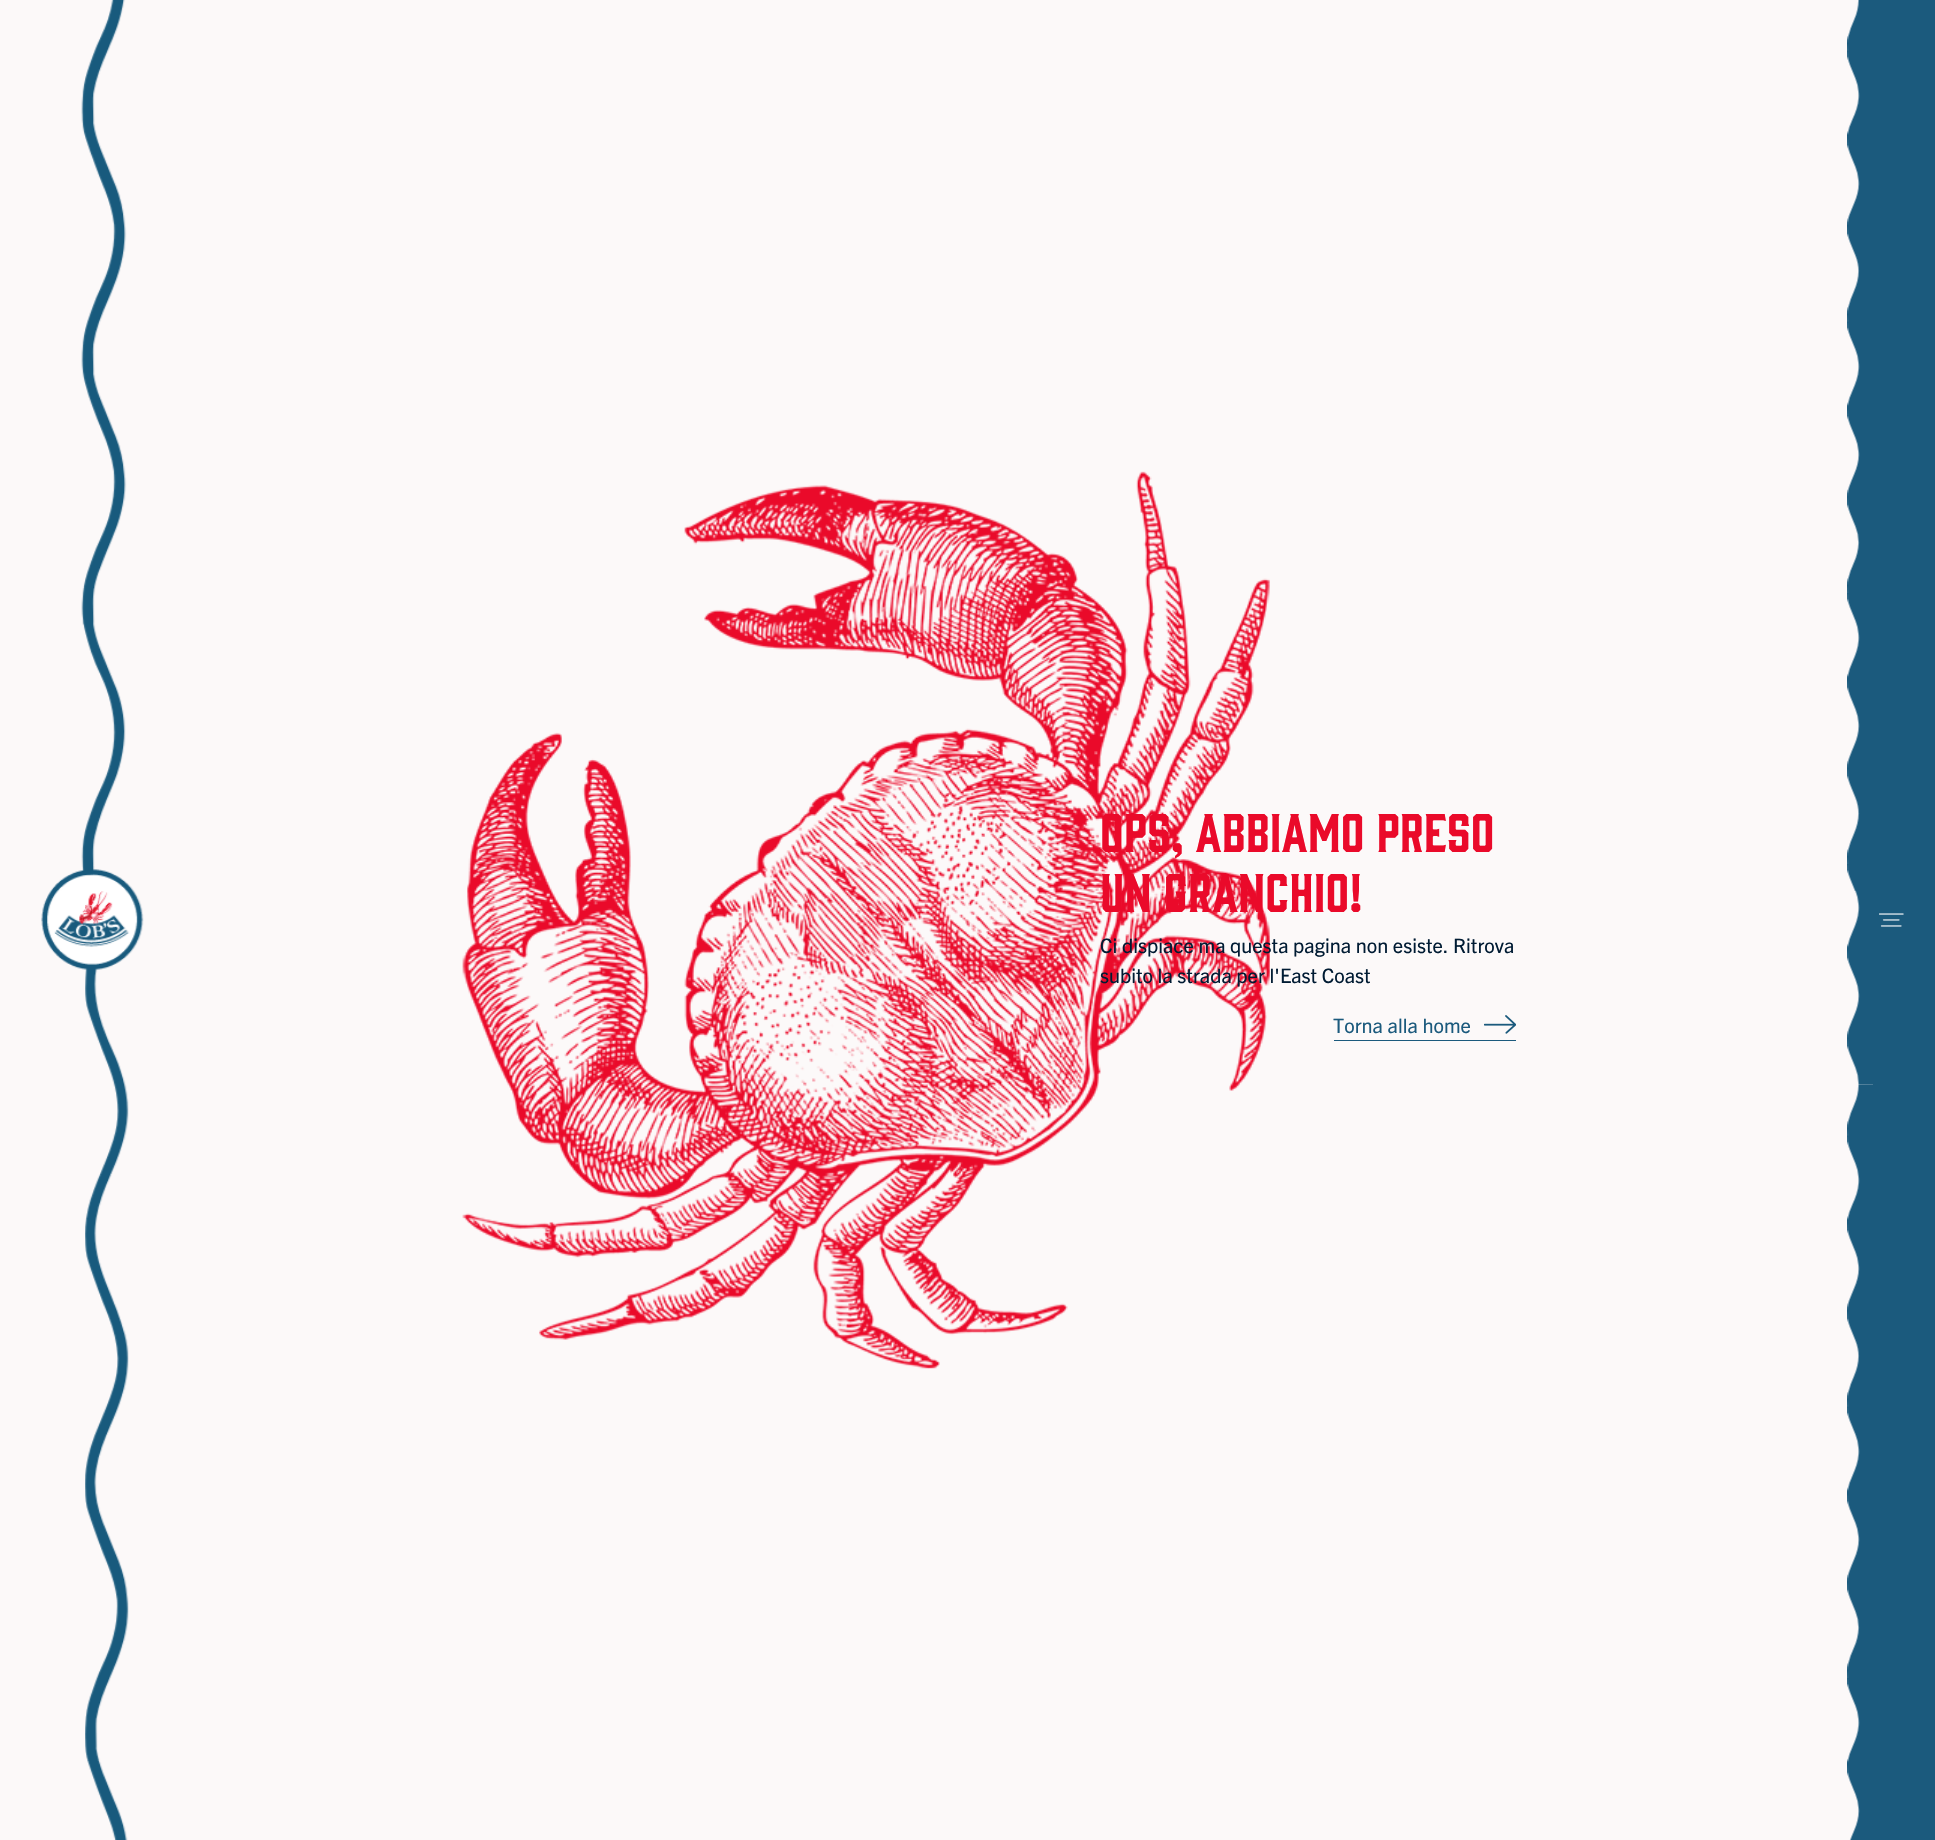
void draw(SkCanvas* c) {
SkPaint p;
p.setAntiAlias(true);
auto F=[&](const char* family, int weight, float size, bool italic = false){SkFontStyle style(weight, SkFontStyle::kNormal_Width,italic ? SkFontStyle::kItalic_Slant : SkFontStyle::kUpright_Slant);SkFont result(fontMgr->matchFamilyStyle(family, style), size);result.setSubpixel(true);return result;};
auto T=[&](const char* s, float x, float y, const SkFont& font){c->drawString(s, x, y, font, p);};
auto R=[&](float x, float y, float w, float h){c->drawRect(SkRect::MakeXYWH(x, y, w, h), p);};
auto I=[&](const char* path, float x, float y, float w, float h){auto image = SkImages::DeferredFromEncodedData(SkData::MakeFromFileName(path));c->drawImageRect(image, SkRect::MakeXYWH(x, y, w, h), SkSamplingOptions());};
c->clear(0xfffcf9f9);
I("1.png",41,0,103,1840);
I("2.png",462,471,808,898);
auto f1 = F("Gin",400,50);
p.setColor(0xffea0a2a);
T("Ops, abbiamo preso",1100,852,f1);
T("un granchio!",1100,912,f1);
auto f2 = F("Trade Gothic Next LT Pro",400,20);
p.setColor(0xff001b33);
T("Ci dispiace ma questa pagina non esiste. Ritrova",1100,953,f2);
T("subito la strada per l'East Coast",1100,983,f2);
p.setColor(0xff1b5a7d);
R(1334,1040,182,1);
T("Torna alla home",1333,1033,f2);
I("3.png",1484,1015,32,19);
R(1873,0,62,1840);
I("4.png",1847,0,26,1840);
I("5.png",1879,913,25,14);
}
